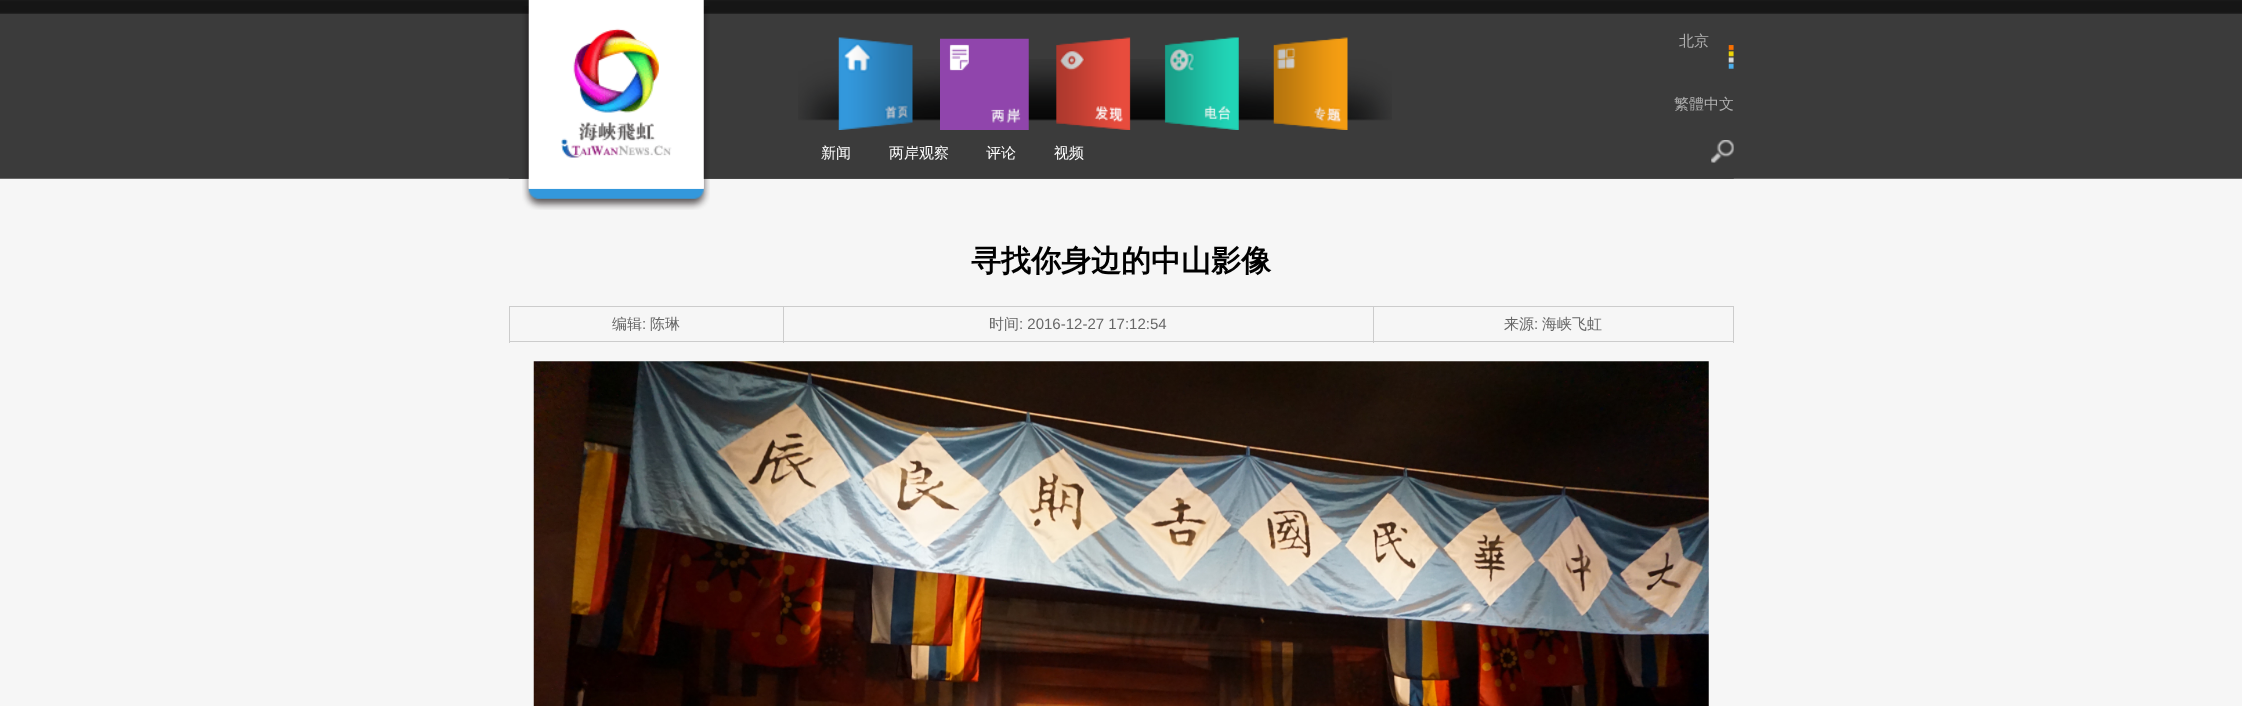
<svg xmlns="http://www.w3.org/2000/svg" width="2242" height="706">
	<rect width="100%" height="100%" fill="#F6F6F6" />
	<image x="0" y="0" width="2242" height="179" href="assets/img1.png" />
	<image x="508" y="178" width="1226" height="1" href="assets/img4.png" />
	<image x="522" y="6" width="188" height="204" href="assets/img2.png" />
	<image x="528" y="0" width="176" height="189" href="assets/img3.png" />
	<text x="1679" y="46" font-family="WenQuanYi Zen Hei" font-size="15" font-weight="500" fill="#B0B0B0">北京</text>
	<image x="1728" y="45" width="6" height="24" href="assets/img5.png" />
	<text x="1674" y="109" font-family="WenQuanYi Zen Hei" font-size="15" font-weight="500" fill="#B0B0B0">繁體中文</text>
	<image x="1711" y="140" width="23" height="23" href="assets/img6.png" />
	<image x="798" y="59" width="594" height="62" href="assets/img7.png" />
	<image x="838" y="37" width="75" height="93" href="assets/img8.png" />
	<image x="940" y="38" width="89" height="92" href="assets/img9.png" />
	<image x="1056" y="37" width="75" height="93" href="assets/img10.png" />
	<image x="1164" y="37" width="75" height="93" href="assets/img11.png" />
	<image x="1273" y="37" width="75" height="93" href="assets/img12.png" />
	<g font-family="WenQuanYi Zen Hei" font-size="15" font-weight="500" fill="#FFFFFF">
		<text x="821" y="158">新闻</text>
		<text x="889" y="158">两岸观察</text>
		<text x="986" y="158">评论</text>
		<text x="1054" y="158">视频</text>
	</g>
	<text x="971" y="271" font-family="WenQuanYi Zen Hei" font-size="30" font-weight="700" fill="#000000">寻找你身边的中山影像</text>
	<rect x="509" y="306" width="1225" height="1" fill="#CCCCCC" />
	<rect x="1733" y="306" width="1" height="37" fill="#CCCCCC" />
	<rect x="509" y="341" width="1225" height="1" fill="#CCCCCC" />
	<rect x="509" y="306" width="1" height="37" fill="#CCCCCC" />
	<rect x="783" y="306" width="1" height="37" fill="#CCCCCC" />
	<text x="612" y="329" font-family="WenQuanYi Zen Hei" font-size="15" font-weight="500" fill="#666666">编辑</text>
	<text x="642" y="329" font-family="Liberation Sans" font-size="15" fill="#666666">:</text>
	<text x="650" y="329" font-family="WenQuanYi Zen Hei" font-size="15" font-weight="500" fill="#666666">陈琳</text>
	<rect x="1373" y="306" width="1" height="37" fill="#CCCCCC" />
	<text x="989" y="329" font-family="WenQuanYi Zen Hei" font-size="15" font-weight="500" fill="#666666">时间</text>
	<text x="1019" y="329" font-family="Liberation Sans" font-size="15" fill="#666666">: 2016-12-27 17:12:54</text>
	<text x="1504" y="329" font-family="WenQuanYi Zen Hei" font-size="15" font-weight="500" fill="#666666">来源</text>
	<text x="1534" y="329" font-family="Liberation Sans" font-size="15" fill="#666666">:</text>
	<text x="1542" y="329" font-family="WenQuanYi Zen Hei" font-size="15" font-weight="500" fill="#666666">海峡飞虹</text>
	<image x="533" y="361" width="1176" height="345" href="assets/img13.png" />
</svg>
